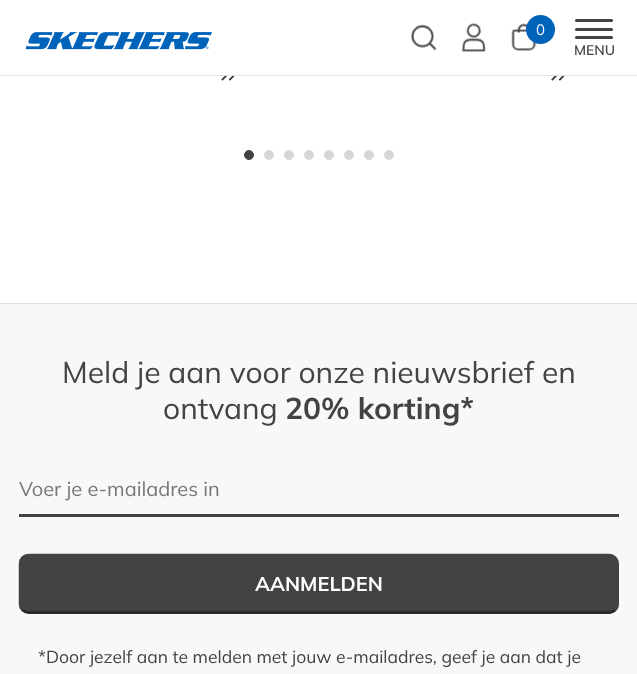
<svg xmlns="http://www.w3.org/2000/svg" width="637" height="674">
	<rect width="100%" height="100%" fill="#FFFFFF" />
	<rect x="0" y="75" width="637" height="1" fill="#E3E3E3" />
	<image x="25" y="32" width="187" height="18" href="assets/img1.png" />
	<image x="410" y="24" width="27" height="27" href="assets/img2.png" />
	<image x="461" y="23" width="25" height="29" href="assets/img3.png" />
	<image x="511" y="23" width="25" height="28" href="assets/img4.png" />
	<circle cx="540.5" cy="29.5" r="14.5" fill="#0063BA" />
	<text x="536" y="35" font-family="Mulish" font-size="15" fill="#FFFFFF">0</text>
	<rect x="575" y="19" width="38" height="3" rx="1.5" fill="#434343" />
	<rect x="575" y="28" width="38" height="3" rx="1.5" fill="#434343" />
	<rect x="575" y="36" width="38" height="3" rx="1.5" fill="#434343" />
	<text x="574" y="55" font-family="Mulish" font-size="14" font-weight="600" fill="#434343">MENU</text>
	<image x="221" y="76" width="14" height="5" href="assets/img5.png" />
	<image x="551" y="76" width="14" height="5" href="assets/img5.png" />
	<circle cx="249" cy="155" r="4.5" fill="#434343" stroke="#434343" />
	<circle cx="269" cy="155" r="4.5" fill="#D6D6D6" stroke="#D6D6D6" />
	<circle cx="289" cy="155" r="4.5" fill="#D6D6D6" stroke="#D6D6D6" />
	<circle cx="309" cy="155" r="4.5" fill="#D6D6D6" stroke="#D6D6D6" />
	<circle cx="329" cy="155" r="4.5" fill="#D6D6D6" stroke="#D6D6D6" />
	<circle cx="349" cy="155" r="4.5" fill="#D6D6D6" stroke="#D6D6D6" />
	<circle cx="369" cy="155" r="4.5" fill="#D6D6D6" stroke="#D6D6D6" />
	<circle cx="389" cy="155" r="4.5" fill="#D6D6D6" stroke="#D6D6D6" />
	<rect x="0" y="304" width="637" height="370" fill="#F8F8F8" />
	<rect x="0" y="303" width="637" height="1" fill="#DEDEDE" />
	<g font-family="Mulish" font-size="30" fill="#434343">
		<text x="62" y="383">Meld je aan voor onze nieuwsbrief en</text>
		<text x="163" y="419">ontvang</text>
	</g>
	<text x="285" y="419" font-family="Mulish" font-size="30" font-weight="700" fill="#434343">20% korting*</text>
	<rect x="19" y="514" width="600" height="3" fill="#434343" />
	<text x="19" y="496" font-family="Mulish" font-size="20" fill="#767676">Voer je e-mailadres in</text>
	<rect x="19" y="554" width="600" height="60" rx="10" fill="#434343" />
	<path d="M615 610C613.5 611.5 611 612.5 609 612.5H29C26.5 612.5 24 611.5 22.5 610" fill="none" stroke="#282828" stroke-width="2.5" />
	<path d="M22.5 610C21 608.5 20 606 20 604V564C20 561.5 21 559 22.5 557.5C24 556 26.5 555 29 555H609C611 555 613.5 556 615 557.5C616.5 559 617.5 561.5 617.5 564V604C617.5 606 616.5 608.5 615 610" fill="none" stroke="#434343" stroke-width="2.5" />
	<text x="255" y="591" font-family="Mulish" font-size="20" font-weight="700" fill="#FFFFFF">AANMELDEN</text>
	<text x="38" y="663" font-family="Mulish" font-size="17.5" fill="#434343">*Door jezelf aan te melden met jouw e-mailadres, geef je aan dat je</text>
</svg>
